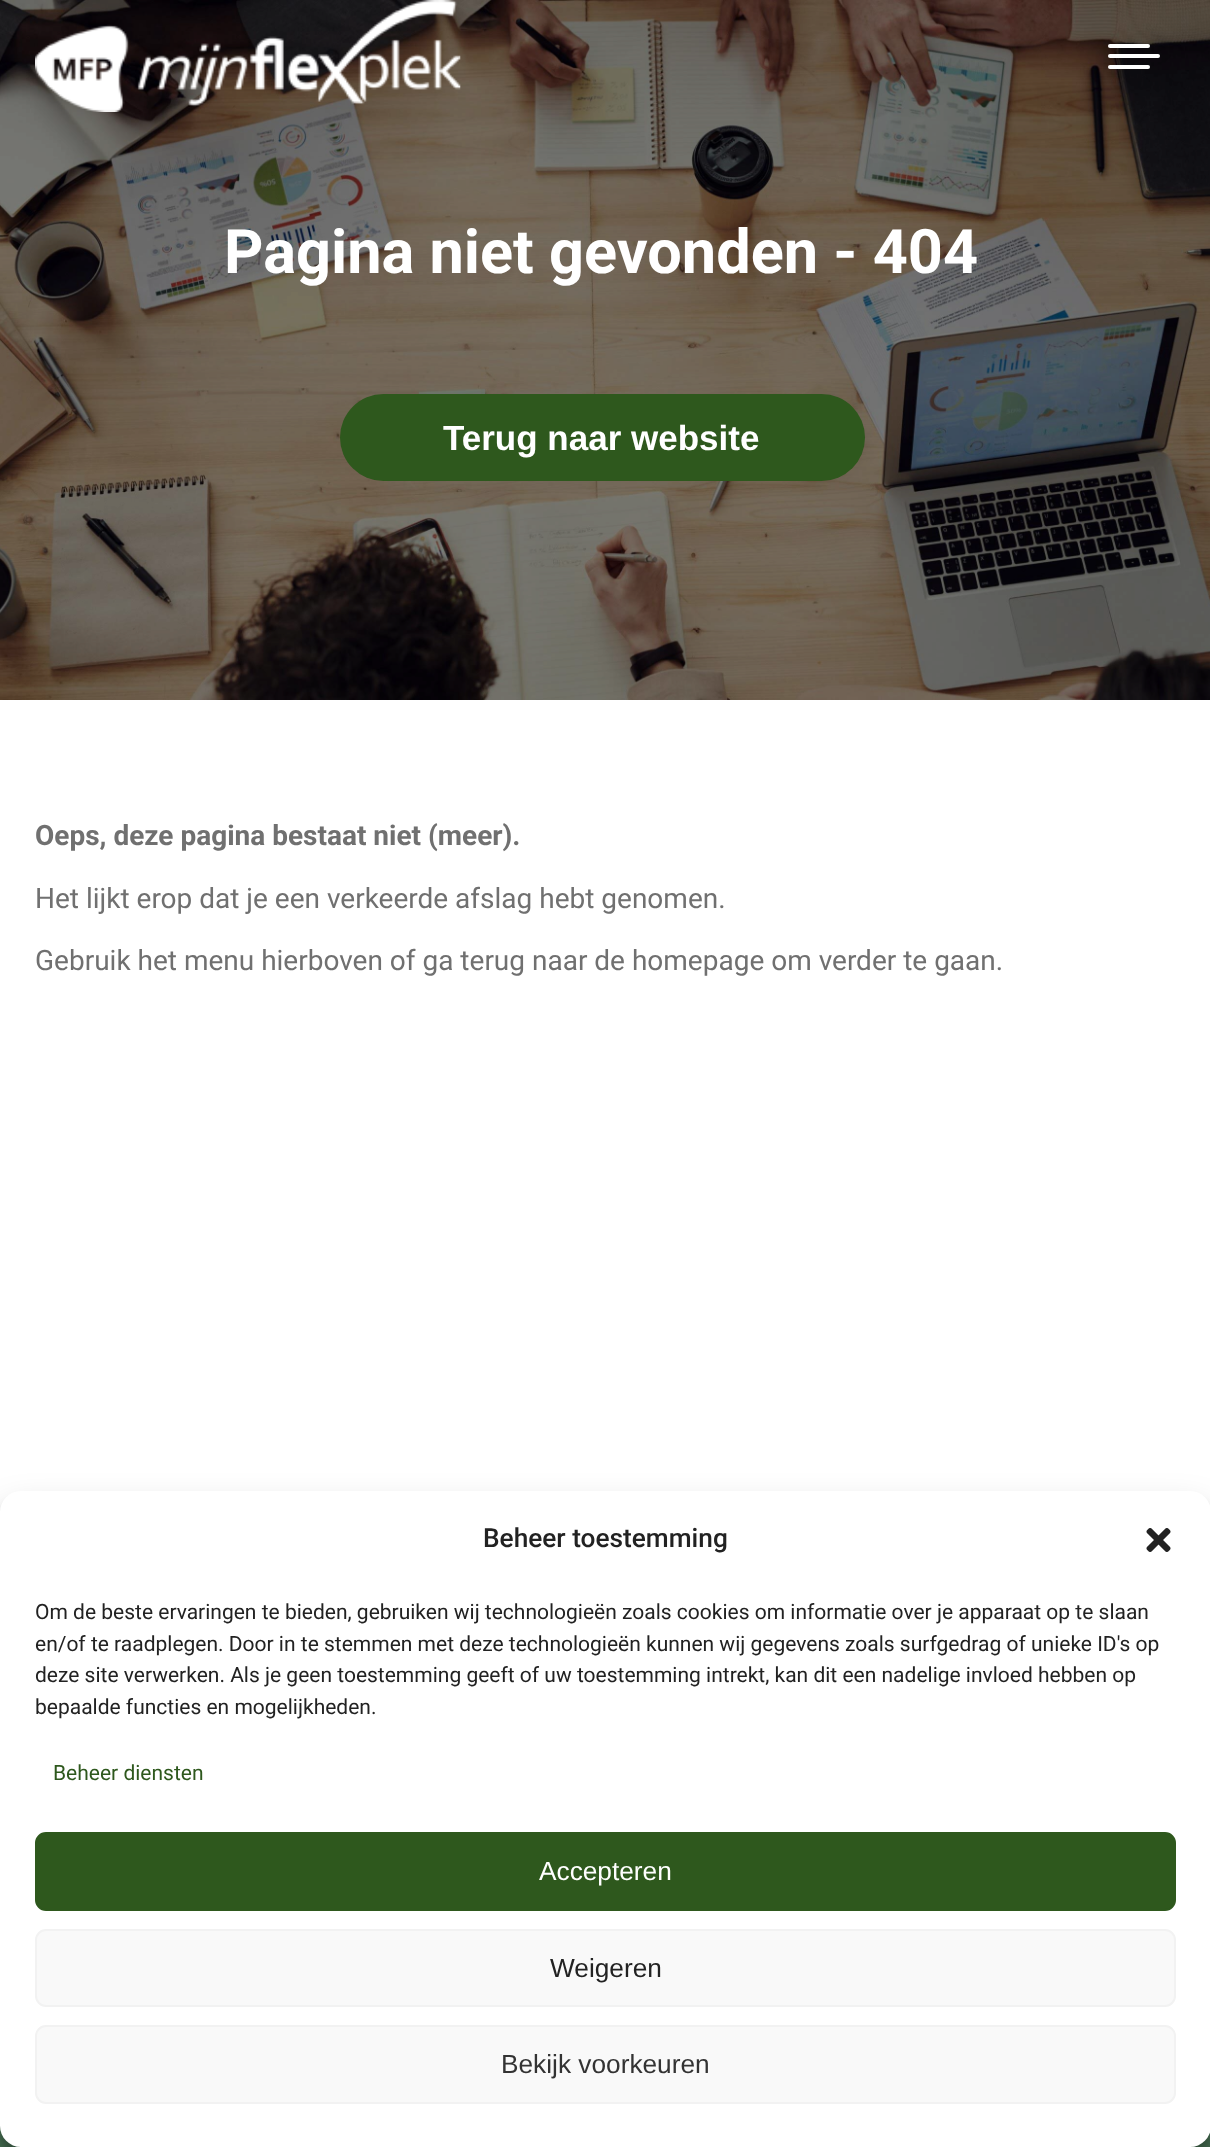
<svg xmlns="http://www.w3.org/2000/svg" width="1210" height="2147">
	<rect width="100%" height="100%" fill="#FFFFFF" />
	<image x="0" y="0" width="1210" height="700" href="assets/img2.png" />
	<image x="35" y="0" width="426" height="112" href="assets/img1.png" />
	<rect x="1108" y="44" width="42" height="4" rx="2" fill="#FFFFFF" />
	<rect x="1108" y="54" width="52" height="4" rx="2" fill="#FFFFFF" />
	<rect x="1108" y="65" width="42" height="4" rx="2" fill="#FFFFFF" />
	<text x="224" y="273" font-family="Roboto" font-size="61.25" font-weight="700" fill="#FFFFFF">Pagina niet gevonden - 404</text>
	<rect x="340" y="394" width="525" height="87" rx="43.5" fill="#2E581D" />
	<text x="443" y="450" font-family="Liberation Sans" font-size="35" font-weight="700" fill="#FFFFFF">Terug naar website</text>
	<text x="35" y="845" font-family="Roboto" font-size="28" font-weight="700" fill="#707070">Oeps, deze pagina bestaat niet (meer).</text>
	<g font-family="Roboto" font-size="28" fill="#707070">
		<text x="35" y="908">Het lijkt erop dat je een verkeerde afslag hebt genomen.</text>
		<text x="35" y="970">Gebruik het menu hierboven of ga terug naar de homepage om verder te gaan.</text>
	</g>
	<rect x="0" y="2126" width="1210" height="21" fill="#4A7456" />
	<rect x="0" y="1502" width="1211" height="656" rx="21" fill="#000000" fill-opacity="0.23" filter="blur(5px)" />
	<rect x="0" y="1509" width="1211" height="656" rx="21" fill="#000000" fill-opacity="0.19" filter="blur(17.5px)" />
	<rect x="0" y="1491" width="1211" height="656" rx="21" fill="#FFFFFF" />
	<text x="483" y="1547" font-family="Roboto" font-size="26.25" font-weight="500" fill="#222222">Beheer toestemming</text>
	<image x="1146" y="1528" width="25" height="24" href="assets/img3.png" />
	<g font-family="Roboto" font-size="21" fill="#222222">
		<text x="35" y="1619">Om de beste ervaringen te bieden, gebruiken wij technologieën zoals cookies om informatie over je apparaat op te slaan</text>
		<text x="35" y="1651">en/of te raadplegen. Door in te stemmen met deze technologieën kunnen wij gegevens zoals surfgedrag of unieke ID's op</text>
		<text x="35" y="1682">deze site verwerken. Als je geen toestemming geeft of uw toestemming intrekt, kan dit een nadelige invloed hebben op</text>
		<text x="35" y="1714">bepaalde functies en mogelijkheden.</text>
	</g>
	<text x="53" y="1780" font-family="Roboto" font-size="21" fill="#2E581D">Beheer diensten</text>
	<rect x="36" y="1833" width="1139" height="77" rx="10" fill="#2E581D" stroke="#2E581D" stroke-width="2" />
	<text x="539" y="1880" font-family="Liberation Sans" font-size="26.25" fill="#FFFFFF">Accepteren</text>
	<rect x="36" y="1930" width="1139" height="76" rx="10" fill="#F9F9F9" stroke="#F2F2F2" stroke-width="2" />
	<text x="550" y="1977" font-family="Liberation Sans" font-size="26.25" fill="#222222">Weigeren</text>
	<rect x="36" y="2026" width="1139" height="77" rx="10" fill="#F9F9F9" stroke="#F2F2F2" stroke-width="2" />
	<text x="501" y="2073" font-family="Liberation Sans" font-size="26.25" fill="#333333">Bekijk voorkeuren</text>
</svg>
